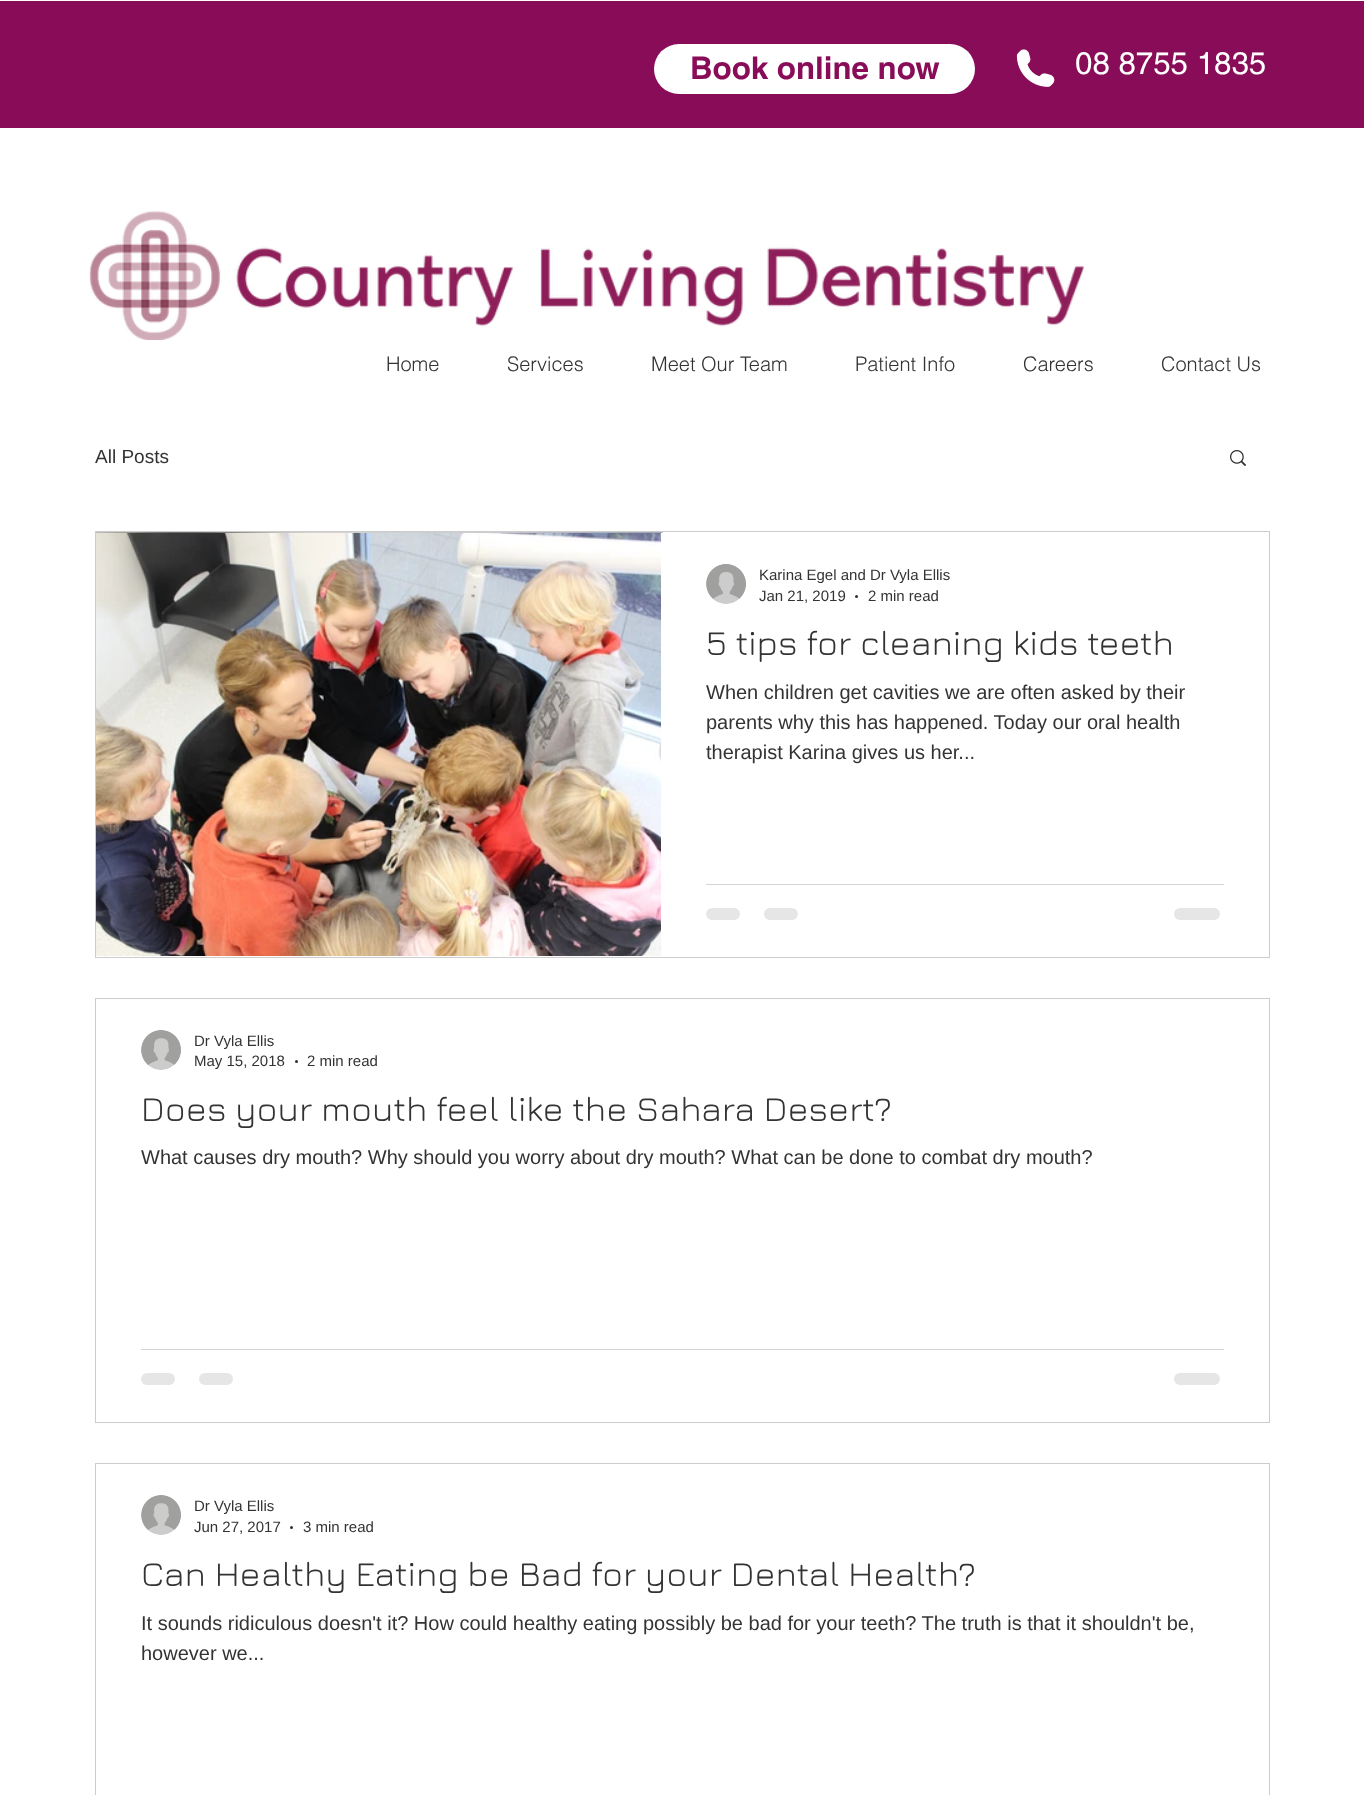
<svg xmlns="http://www.w3.org/2000/svg" width="1364" height="1795">
	<rect width="100%" height="100%" fill="#FFFFFF" />
	<rect x="0" y="1" width="1364" height="127" fill="#890C58" />
	<rect x="654" y="44" width="321" height="50" rx="25" fill="#FFFFFF" />
	<text x="690" y="79" font-family="helvetica" font-size="31.25" font-weight="700" fill="#890C58">Book online now</text>
	<image x="1016" y="49" width="39" height="38" href="assets/img1.png" />
	<text x="1075" y="74" font-family="helvetica" font-size="31.25" fill="#FFFFFF">08 8755 1835</text>
	<image x="89" y="211" width="995" height="129" href="assets/img2.png" />
	<g font-family="helvetica" font-size="20" font-weight="300" fill="#333333">
		<text x="386" y="371">Home</text>
		<text x="507" y="371">Services</text>
		<text x="651" y="371">Meet Our Team</text>
		<text x="855" y="371">Patient Info</text>
		<text x="1023" y="371">Careers</text>
		<text x="1161" y="371">Contact Us</text>
	</g>
	<text x="95" y="463" font-family="Liberation Sans" font-size="19" fill="#333333">All Posts</text>
	<image x="1230" y="450" width="16" height="16" href="assets/img3.png" />
	<rect x="95.5" y="531.5" width="1174" height="426" fill="none" stroke="#CCCCCC" />
	<image x="96" y="532" width="567" height="1" href="assets/img4.png" />
	<image x="96" y="533" width="565" height="423" href="assets/img5.png" />
	<image x="706" y="564" width="40" height="40" href="assets/img6.png" />
	<g font-family="Liberation Sans" font-size="15" fill="#333333">
		<text x="759" y="580">Karina Egel and Dr Vyla Ellis</text>
		<text x="759" y="601">Jan 21, 2019</text>
	</g>
	<circle cx="856.5" cy="596.5" r="1.5" fill="#2F2E2E" />
	<text x="868" y="601" font-family="Liberation Sans" font-size="15" fill="#333333">2 min read</text>
	<text x="706" y="655" font-family="Jura" font-size="35" fill="#333333">5 tips for cleaning kids teeth</text>
	<g font-family="Liberation Sans" font-size="20" fill="#333333">
		<text x="706" y="699">When children get cavities we are often asked by their</text>
		<text x="706" y="729">parents why this has happened. Today our oral health</text>
		<text x="706" y="759">therapist Karina gives us her...</text>
	</g>
	<rect x="706" y="884" width="518" height="1" fill="#D5D5D5" />
	<rect x="706" y="908" width="34" height="12" rx="6" fill="#E6E6E6" />
	<rect x="764" y="908" width="34" height="12" rx="6" fill="#E6E6E6" />
	<rect x="1174" y="908" width="46" height="12" rx="6" fill="#E6E6E6" />
	<rect x="95.5" y="998.5" width="1174" height="424" fill="none" stroke="#CCCCCC" />
	<image x="141" y="1030" width="40" height="40" href="assets/img7.png" />
	<g font-family="Liberation Sans" font-size="15" fill="#333333">
		<text x="194" y="1046">Dr Vyla Ellis</text>
		<text x="194" y="1066">May 15, 2018</text>
	</g>
	<circle cx="296.5" cy="1061.5" r="1.5" fill="#2F2E2E" />
	<text x="307" y="1066" font-family="Liberation Sans" font-size="15" fill="#333333">2 min read</text>
	<text x="141" y="1121" font-family="Jura" font-size="35" fill="#333333">Does your mouth feel like the Sahara Desert?</text>
	<text x="141" y="1164" font-family="Liberation Sans" font-size="20" fill="#333333">What causes dry mouth? Why should you worry about dry mouth? What can be done to combat dry mouth?</text>
	<rect x="141" y="1349" width="1083" height="1" fill="#D5D5D5" />
	<rect x="141" y="1373" width="34" height="12" rx="6" fill="#E6E6E6" />
	<rect x="199" y="1373" width="34" height="12" rx="6" fill="#E6E6E6" />
	<rect x="1174" y="1373" width="46" height="12" rx="6" fill="#E6E6E6" />
	<rect x="95.5" y="1463.5" width="1174" height="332" fill="none" stroke="#CCCCCC" />
	<image x="141" y="1495" width="40" height="40" href="assets/img7.png" />
	<g font-family="Liberation Sans" font-size="15" fill="#333333">
		<text x="194" y="1511">Dr Vyla Ellis</text>
		<text x="194" y="1532">Jun 27, 2017</text>
	</g>
	<circle cx="291.5" cy="1527.5" r="1.5" fill="#2F2E2E" />
	<text x="303" y="1532" font-family="Liberation Sans" font-size="15" fill="#333333">3 min read</text>
	<text x="141" y="1586" font-family="Jura" font-size="35" fill="#333333">Can Healthy Eating be Bad for your Dental Health?</text>
	<g font-family="Liberation Sans" font-size="20" fill="#333333">
		<text x="141" y="1630">It sounds ridiculous doesn't it? How could healthy eating possibly be bad for your teeth? The truth is that it shouldn't be,</text>
		<text x="141" y="1660">however we...</text>
	</g>
</svg>
